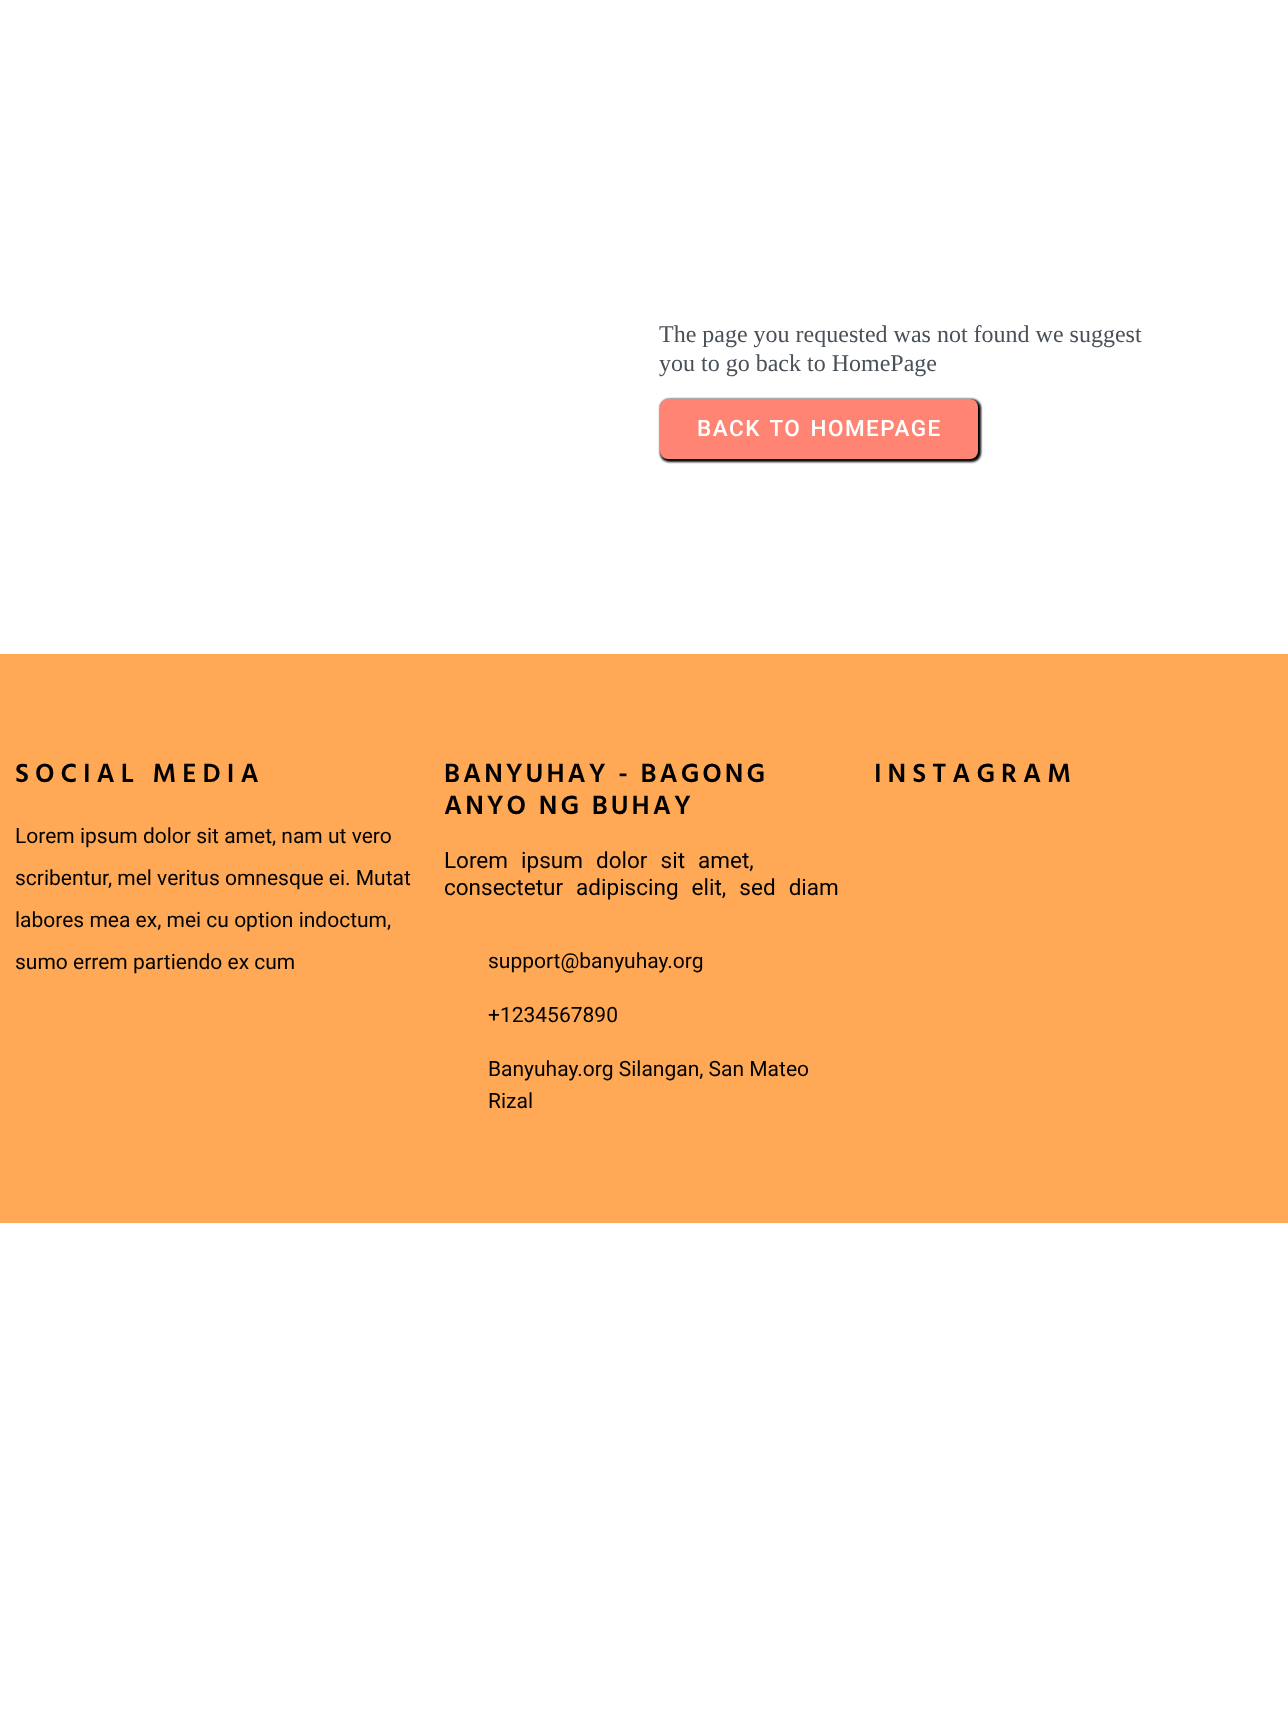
<svg xmlns="http://www.w3.org/2000/svg" width="1288" height="1725">
	<rect width="100%" height="100%" fill="#FFFFFF" />
	<g font-family="Liberation Serif" font-size="24" fill="#495057">
		<text x="659" y="342">The page you requested was not found we suggest</text>
		<text x="659" y="371">you to go back to HomePage</text>
	</g>
	<rect x="660" y="399" width="321" height="63" rx="9" fill="#000000" filter="blur(1px)" />
	<rect x="660" y="399" width="318" height="60" rx="8" fill="#FF8474" />
	<text x="697" y="436" word-spacing="2" font-family="Roboto" font-size="22.5" font-weight="500" letter-spacing="1.5" fill="#FFFFFF">BACK TO HOMEPAGE</text>
	<rect x="0" y="654" width="1288" height="569" fill="#FFA956" />
	<text x="15" y="782" font-family="Hind" font-size="27" font-weight="600" letter-spacing="6" fill="#000000">SOCIAL MEDIA</text>
	<g font-family="Roboto" font-size="21" fill="#000000">
		<text x="15" y="843">Lorem ipsum dolor sit amet, nam ut vero</text>
		<text x="15" y="885">scribentur, mel veritus omnesque ei. Mutat</text>
		<text x="15" y="927">labores mea ex, mei cu option indoctum,</text>
		<text x="15" y="969">sumo errem partiendo ex cum</text>
	</g>
	<g font-family="Hind" font-size="27" font-weight="600" letter-spacing="3" fill="#000000">
		<text x="444" y="782">BANYUHAY - BAGONG</text>
		<text x="444" y="814">ANYO NG BUHAY</text>
	</g>
	<g font-family="Roboto" font-size="22.5" fill="#000000">
		<text x="444" y="868" word-spacing="7.5">Lorem ipsum dolor sit amet,</text>
		<text x="444" y="895" word-spacing="7.5">consectetur adipiscing elit, sed diam</text>
	</g>
	<g font-family="Roboto" font-size="21" fill="#000000">
		<text x="488" y="968">support@banyuhay.org</text>
		<text x="488" y="1022">+1234567890</text>
		<text x="488" y="1076">Banyuhay.org Silangan, San Mateo</text>
		<text x="488" y="1108">Rizal</text>
	</g>
	<text x="874" y="782" font-family="Hind" font-size="27" font-weight="600" letter-spacing="6" fill="#000000">INSTAGRAM</text>
</svg>
